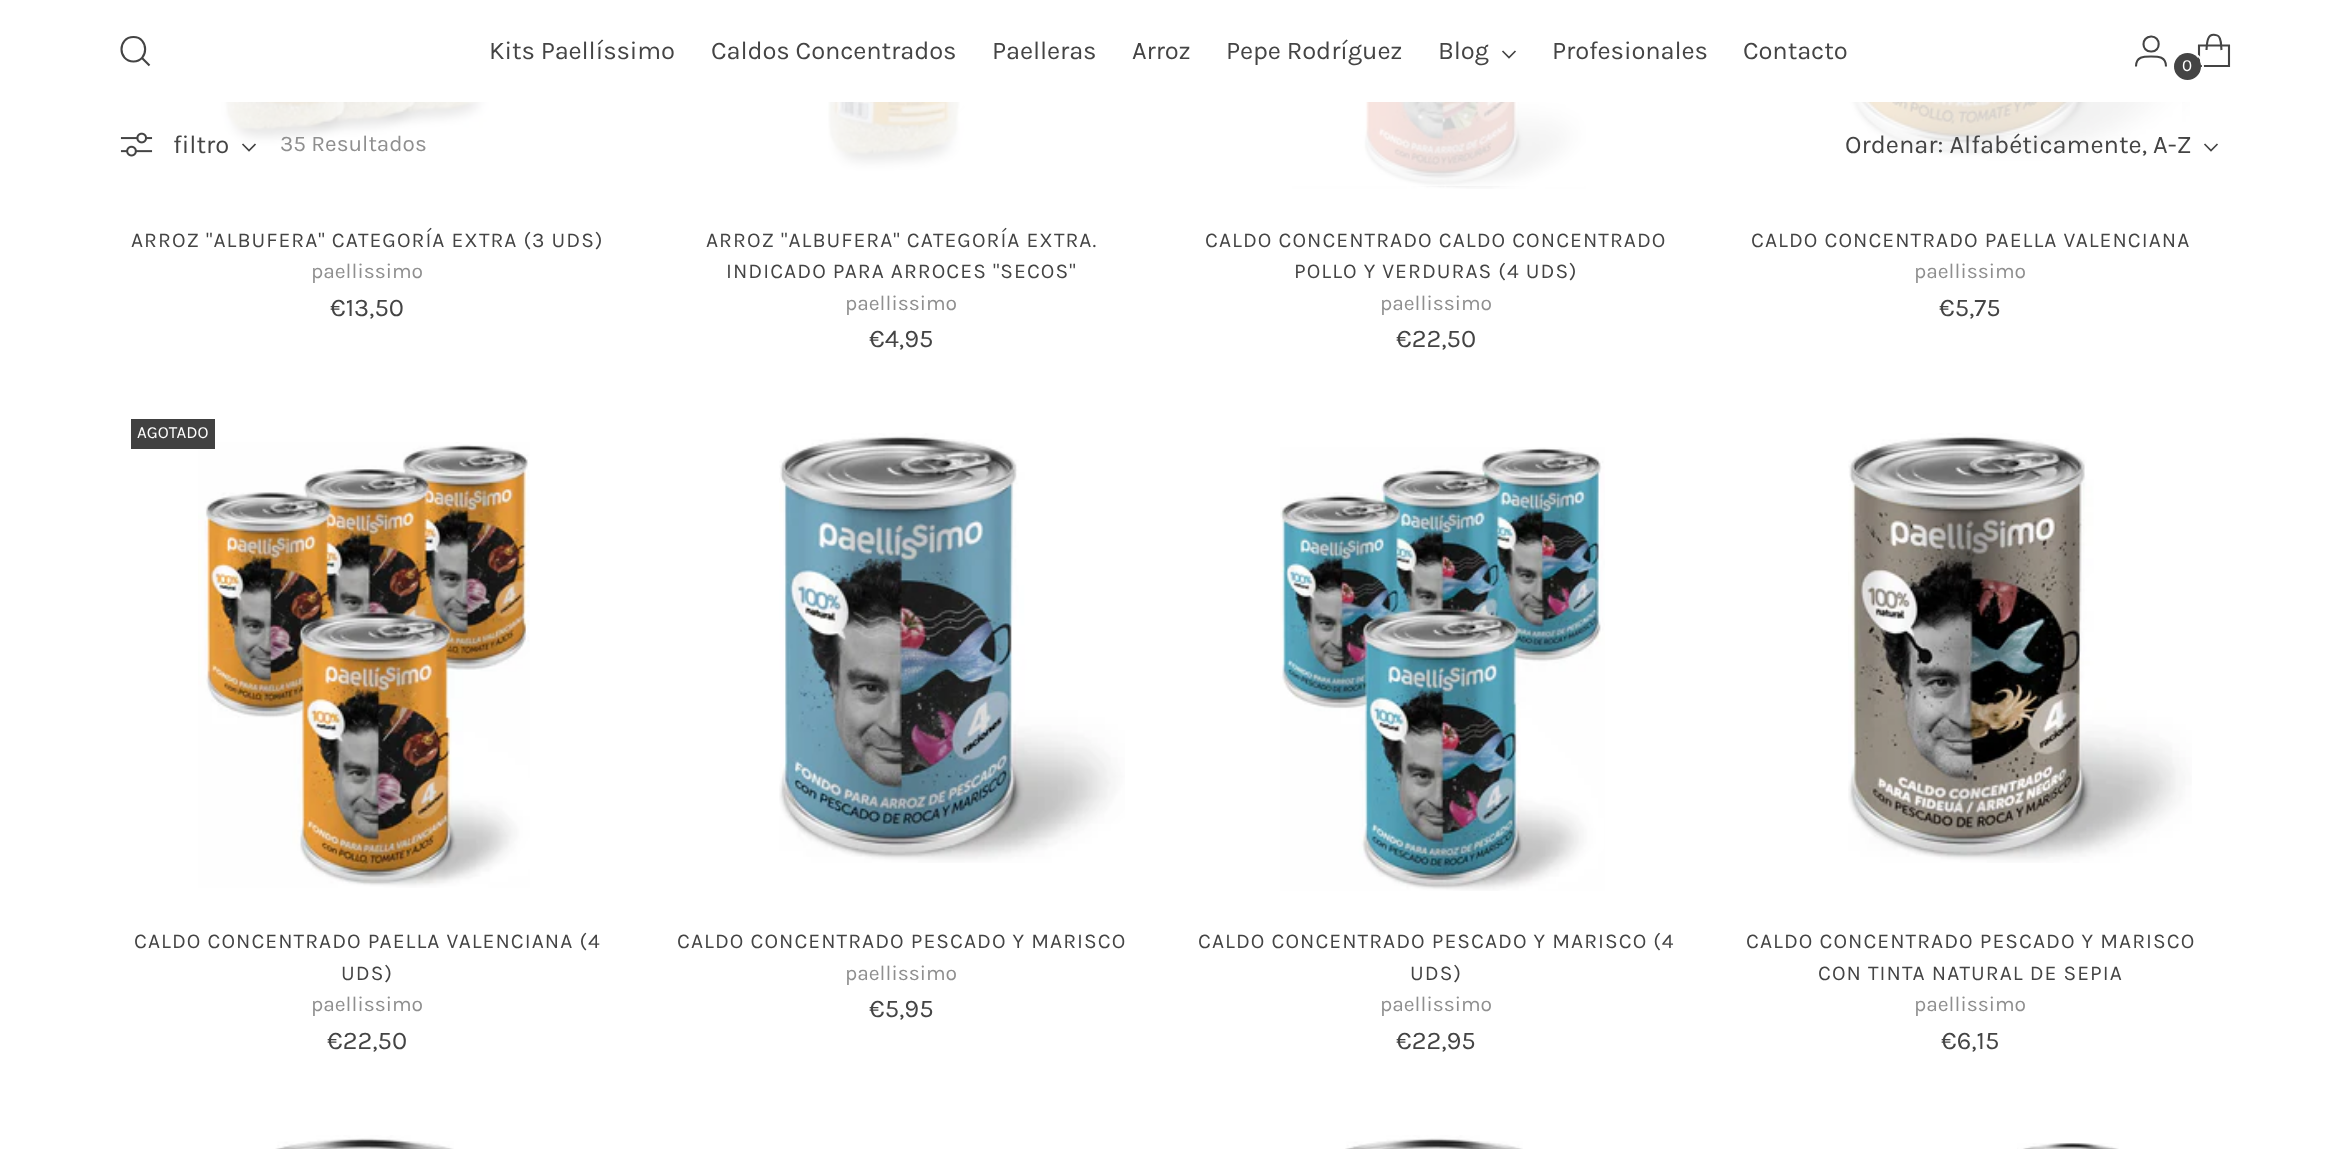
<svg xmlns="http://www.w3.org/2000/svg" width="2336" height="1149">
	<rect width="100%" height="100%" fill="#FFFFFF" />
	<path d="M133.5 61.5C149 61.5 149 37 133.5 37C117.5 37 117.5 61.5 133.5 61.5Z" fill="none" stroke="#444444" stroke-width="2.1" stroke-linecap="round" />
	<path d="M142 58L149.5 65.5" fill="none" stroke="#444444" stroke-width="2.1" />
	<g font-family="Karla" font-size="25.5" letter-spacing="-0.1" fill="#444444">
		<text x="489" y="59">Kits Paellíssimo</text>
		<text x="711" y="59">Caldos Concentrados</text>
		<text x="992" y="59">Paelleras</text>
		<text x="1132" y="59">Arroz</text>
		<text x="1226" y="59">Pepe Rodríguez</text>
		<text x="1438" y="59">Blog</text>
	</g>
	<path d="M1502.5 51L1509 57.5L1515.5 51" fill="none" stroke="#444444" stroke-width="1.7" />
	<g font-family="Karla" font-size="25.5" letter-spacing="-0.1" fill="#444444">
		<text x="1552" y="59">Profesionales</text>
		<text x="1743" y="59">Contacto</text>
	</g>
	<path d="M2151 51.5C2161.5 52 2161 36 2151 36.5C2141 37 2141 51.5 2151 51.5ZM2136 66.5C2136 56.5 2143.5 56.5 2151 56.5C2158.5 56.5 2166 56.5 2166 66.5" fill="none" stroke="#444444" stroke-width="2.1" />
	<path d="M2221.5 50C2221 46.5 2221.5 42.5 2220 39C2219.5 37 2217.5 35 2215.5 35C2206.5 33 2207 44.5 2206.5 50" fill="none" stroke="#444444" stroke-width="2.1" stroke-linejoin="bevel" />
	<path d="M2229 66V45.5H2199V66Z" fill="none" stroke="#444444" stroke-width="2.1" />
	<circle cx="2188" cy="67" r="15" fill="none" stroke="#FFFFFF" stroke-width="2" />
	<circle cx="2187.5" cy="66.5" r="13.5" fill="#444444" />
	<text x="2182" y="71" font-family="Karla" font-size="17" fill="#FFFFFF">0</text>
	<image x="221" y="102" width="269" height="44" href="assets/img2.png" />
	<image x="825" y="102" width="140" height="69" href="assets/img3.png" />
	<image x="1292" y="102" width="294" height="87" href="assets/img4.png" />
	<image x="1848" y="102" width="342" height="59" href="assets/img5.png" />
	<rect x="221" y="102" width="1961" height="84" fill="#FFFFFF" fill-opacity="0.8" />
	<image x="120" y="132" width="33" height="25" href="assets/img1.png" />
	<text x="173" y="153" font-family="Karla" font-size="25.5" fill="#444444">filtro</text>
	<path d="M242.5 144L249 150.5L255.5 144" fill="none" stroke="#444444" stroke-width="1.7" />
	<text x="280" y="151" font-family="Karla" font-size="22.5" fill="#8F8F8F">35 Resultados</text>
	<text x="1845" y="153" font-family="Karla" font-size="25.5" fill="#444444">Ordenar: Alfabéticamente, A-Z</text>
	<path d="M2204.5 144L2211 150.5L2217.5 144" fill="none" stroke="#444444" stroke-width="1.7" />
	<text x="131" y="247" font-family="Karla" font-size="21" letter-spacing="1.05" fill="#444444">ARROZ "ALBUFERA" CATEGORÍA EXTRA (3 UDS)</text>
	<text x="311" y="278" font-family="Karla" font-size="21" fill="#8F8F8F">paellissimo</text>
	<text x="330" y="316" font-family="Karla" font-size="25.5" fill="#444444">€13,50</text>
	<g font-family="Karla" font-size="21" letter-spacing="1.05" fill="#444444">
		<text x="706" y="247">ARROZ "ALBUFERA" CATEGORÍA EXTRA.</text>
		<text x="726" y="278">INDICADO PARA ARROCES "SECOS"</text>
	</g>
	<text x="845" y="310" font-family="Karla" font-size="21" fill="#8F8F8F">paellissimo</text>
	<text x="869" y="347" font-family="Karla" font-size="25.5" fill="#444444">€4,95</text>
	<g font-family="Karla" font-size="21" letter-spacing="1.05" fill="#444444">
		<text x="1205" y="247">CALDO CONCENTRADO CALDO CONCENTRADO</text>
		<text x="1294" y="278">POLLO Y VERDURAS (4 UDS)</text>
	</g>
	<text x="1380" y="310" font-family="Karla" font-size="21" fill="#8F8F8F">paellissimo</text>
	<text x="1396" y="347" font-family="Karla" font-size="25.5" fill="#444444">€22,50</text>
	<text x="1751" y="247" font-family="Karla" font-size="21" letter-spacing="1.05" fill="#444444">CALDO CONCENTRADO PAELLA VALENCIANA</text>
	<text x="1914" y="278" font-family="Karla" font-size="21" fill="#8F8F8F">paellissimo</text>
	<text x="1939" y="316" font-family="Karla" font-size="25.5" fill="#444444">€5,75</text>
	<image x="198" y="442" width="332" height="446" href="assets/img6.png" />
	<rect x="131" y="419" width="84" height="30" fill="#414141" />
	<text x="137" y="438" font-family="Karla" font-size="17" fill="#FFFFFF">AGOTADO</text>
	<g font-family="Karla" font-size="21" letter-spacing="1.05" fill="#444444">
		<text x="134" y="948">CALDO CONCENTRADO PAELLA VALENCIANA (4</text>
		<text x="341" y="980">UDS)</text>
	</g>
	<text x="311" y="1011" font-family="Karla" font-size="21" fill="#8F8F8F">paellissimo</text>
	<text x="327" y="1049" font-family="Karla" font-size="25.5" fill="#444444">€22,50</text>
	<image x="779" y="433" width="346" height="430" href="assets/img7.png" />
	<text x="677" y="948" font-family="Karla" font-size="21" letter-spacing="1.05" fill="#444444">CALDO CONCENTRADO PESCADO Y MARISCO</text>
	<text x="845" y="980" font-family="Karla" font-size="21" fill="#8F8F8F">paellissimo</text>
	<text x="869" y="1017" font-family="Karla" font-size="25.5" fill="#444444">€5,95</text>
	<image x="1280" y="447" width="325" height="444" href="assets/img8.png" />
	<g font-family="Karla" font-size="21" letter-spacing="1.05" fill="#444444">
		<text x="1198" y="948">CALDO CONCENTRADO PESCADO Y MARISCO (4</text>
		<text x="1410" y="980">UDS)</text>
	</g>
	<text x="1380" y="1011" font-family="Karla" font-size="21" fill="#8F8F8F">paellissimo</text>
	<text x="1396" y="1049" font-family="Karla" font-size="25.5" fill="#444444">€22,95</text>
	<image x="1848" y="433" width="344" height="430" href="assets/img9.png" />
	<g font-family="Karla" font-size="21" letter-spacing="1.05" fill="#444444">
		<text x="1746" y="948">CALDO CONCENTRADO PESCADO Y MARISCO</text>
		<text x="1818" y="980">CON TINTA NATURAL DE SEPIA</text>
	</g>
	<text x="1914" y="1011" font-family="Karla" font-size="21" fill="#8F8F8F">paellissimo</text>
	<text x="1941" y="1049" font-family="Karla" font-size="25.5" fill="#444444">€6,15</text>
	<image x="275" y="1135" width="179" height="14" href="assets/img10.png" />
	<image x="1345" y="1135" width="178" height="14" href="assets/img11.png" />
	<image x="2017" y="1143" width="102" height="6" href="assets/img12.png" />
</svg>
